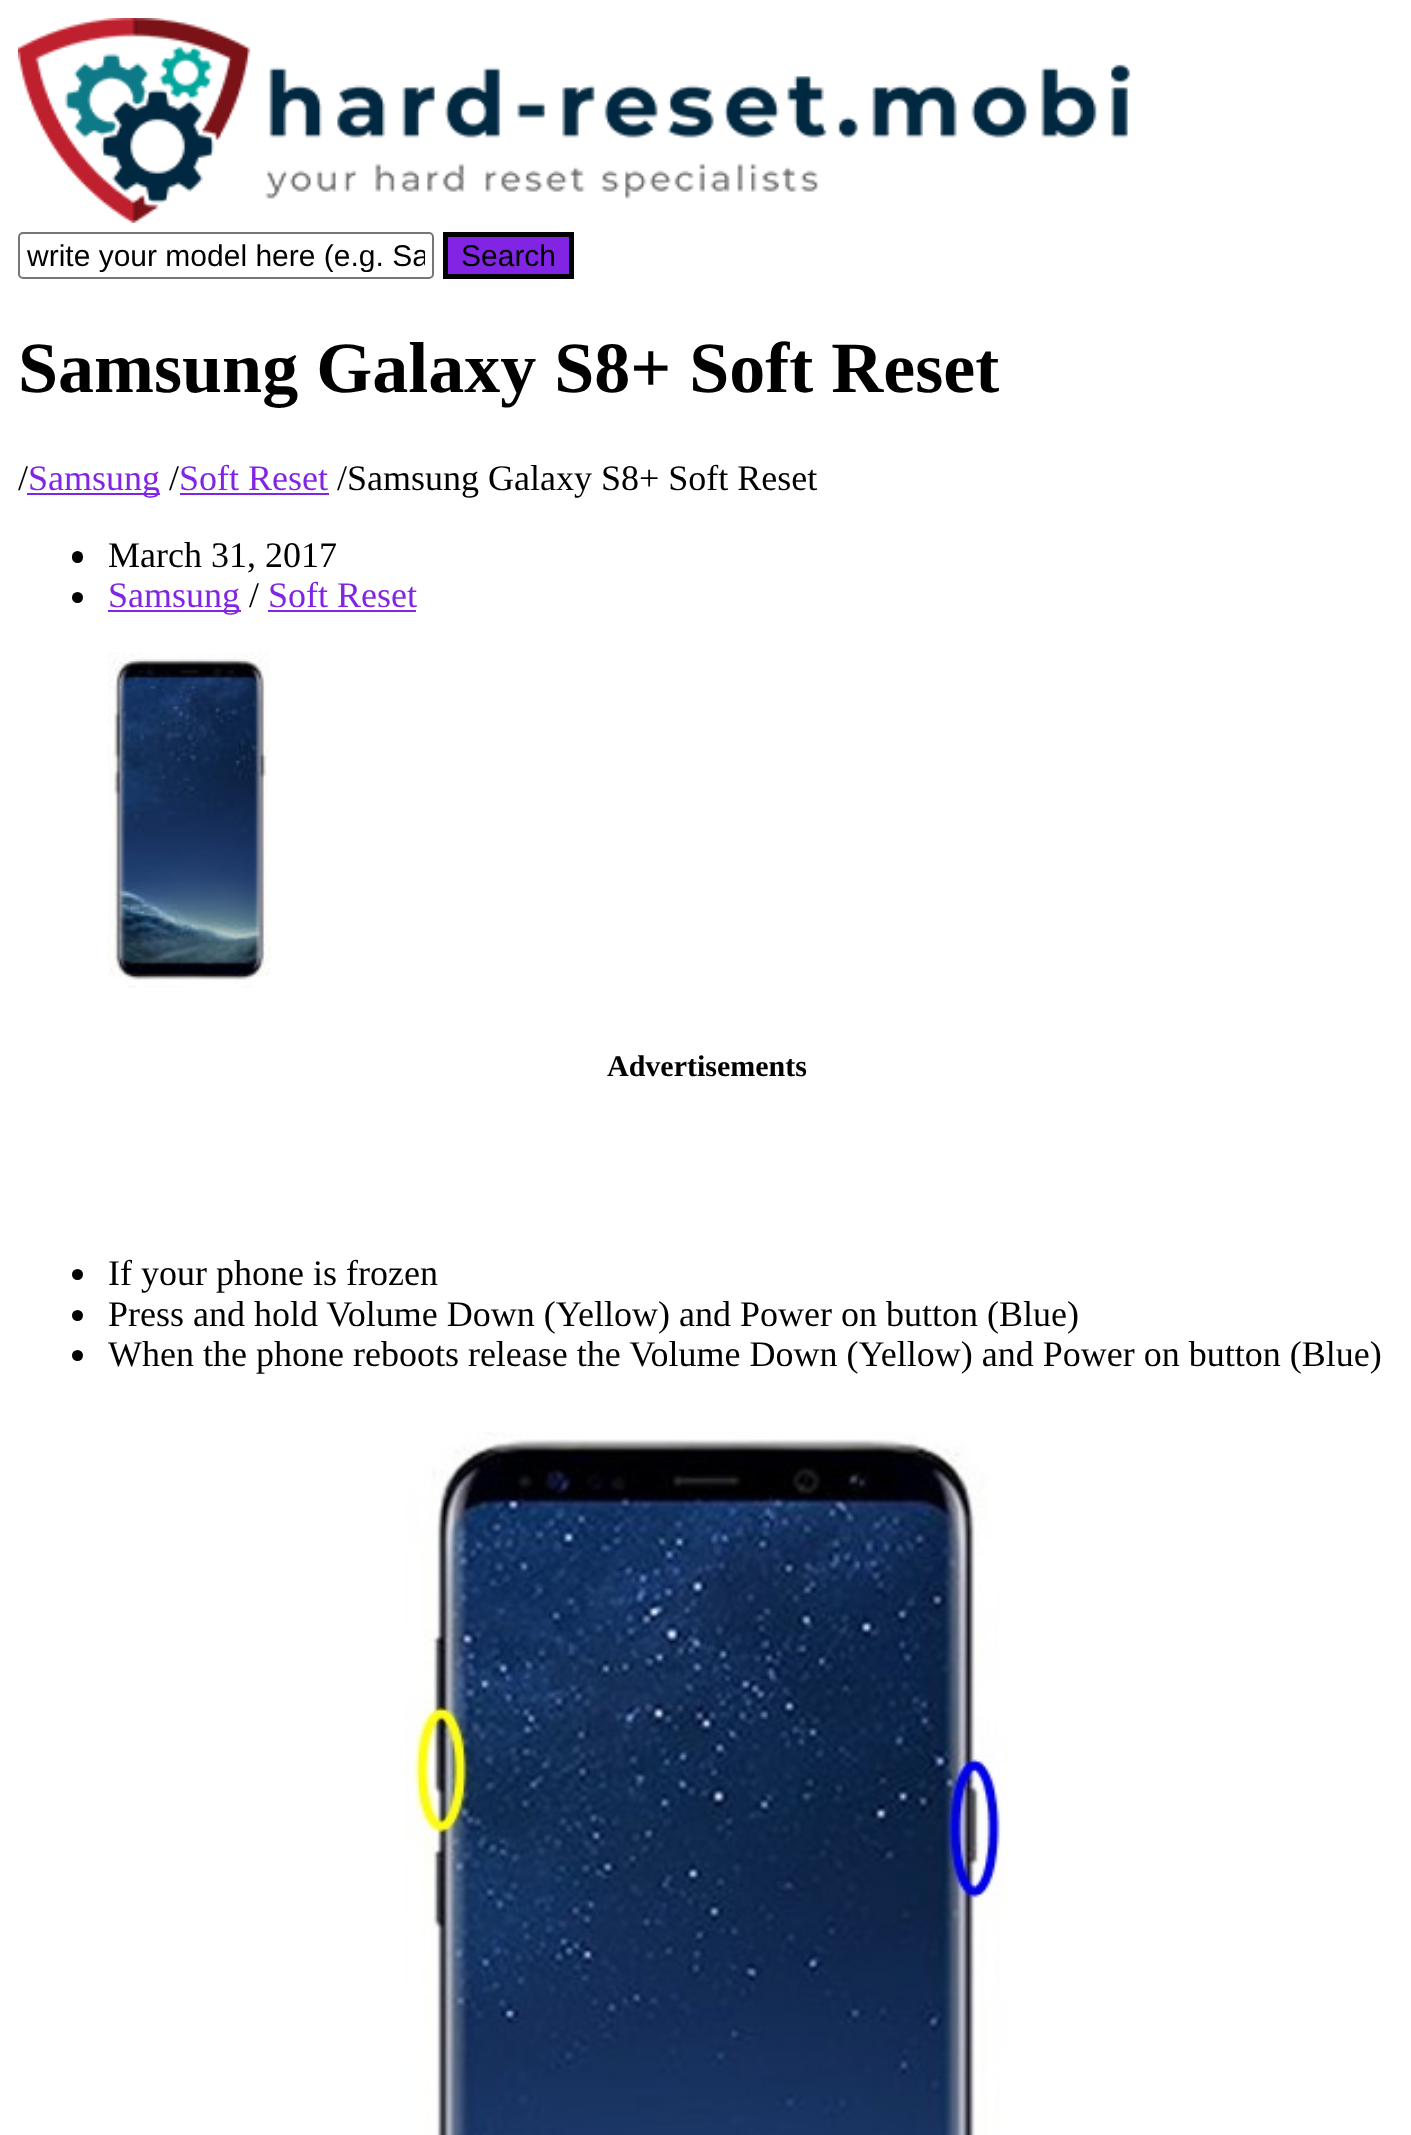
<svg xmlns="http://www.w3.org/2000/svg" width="1411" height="2135">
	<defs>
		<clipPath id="clip1"><rect x="27" y="239" width="398" height="33" /></clipPath>
	</defs>
	<rect width="100%" height="100%" fill="#FFFFFF" />
	<image x="18" y="18" width="1113" height="205" href="assets/img1.png" />
	<rect x="19" y="233" width="414" height="45" rx="4" fill="none" stroke="#767676" stroke-width="2" />
	<g clip-path="url(#clip1)">
		<text x="27" y="266" font-family="Liberation Sans" font-size="30" fill="#000000">write your model here (e.g. Sa</text>
	</g>
	<rect x="445.5" y="234.5" width="126" height="42" fill="#8224E3" stroke="#000000" stroke-width="5" />
	<text x="461" y="266" font-family="Liberation Sans" font-size="30" fill="#000000">Search</text>
	<text x="18" y="392" font-family="Liberation Serif" font-size="72" font-weight="700" fill="#000000">Samsung Galaxy S8+ Soft Reset</text>
	<text x="18" y="490" font-family="Liberation Serif" font-size="36" fill="#000000">/</text>
	<rect x="27" y="493" width="133" height="2" fill="#8224E3" />
	<text x="28" y="490" font-family="Liberation Serif" font-size="36" fill="#8224E3">Samsung</text>
	<text x="169" y="490" font-family="Liberation Serif" font-size="36" fill="#000000">/</text>
	<text x="179" y="490" font-family="Liberation Serif" font-size="36" fill="#8224E3">Soft Reset</text>
	<rect x="180" y="493" width="149" height="2" fill="#8224E3" />
	<text x="337" y="490" font-family="Liberation Serif" font-size="36" fill="#000000">/Samsung Galaxy S8+ Soft Reset</text>
	<rect x="72" y="551" width="11" height="12" rx="5.5" fill="#000000" />
	<text x="108" y="567" font-family="Liberation Serif" font-size="36" fill="#000000">March 31, 2017</text>
	<circle cx="77.5" cy="597.5" r="5.5" fill="#000000" />
	<rect x="108" y="610" width="133" height="2" fill="#8224E3" />
	<text x="108" y="607" font-family="Liberation Serif" font-size="36" fill="#8224E3">Samsung</text>
	<text x="249" y="607" font-family="Liberation Serif" font-size="36" fill="#000000">/</text>
	<text x="268" y="607" font-family="Liberation Serif" font-size="36" fill="#8224E3">Soft Reset</text>
	<rect x="268" y="610" width="148" height="2" fill="#8224E3" />
	<image x="108" y="652" width="163" height="336" href="assets/img2.png" />
	<text x="607" y="1076" font-family="Liberation Serif" font-size="30" font-weight="700" fill="#000000">Advertisements</text>
	<circle cx="77.5" cy="1274.5" r="5.5" fill="#000000" />
	<text x="108" y="1285" font-family="Liberation Serif" font-size="36" fill="#000000">If your phone is frozen</text>
	<circle cx="77.5" cy="1315.5" r="5.5" fill="#000000" />
	<text x="108" y="1326" font-family="Liberation Serif" font-size="36" fill="#000000">Press and hold Volume Down (Yellow) and Power on button (Blue)</text>
	<circle cx="77.5" cy="1355.5" r="5.5" fill="#000000" />
	<text x="108" y="1366" font-family="Liberation Serif" font-size="36" fill="#000000">When the phone reboots release the Volume Down (Yellow) and Power on button (Blue)</text>
	<image x="405" y="1432" width="603" height="703" href="assets/img3.png" />
</svg>
